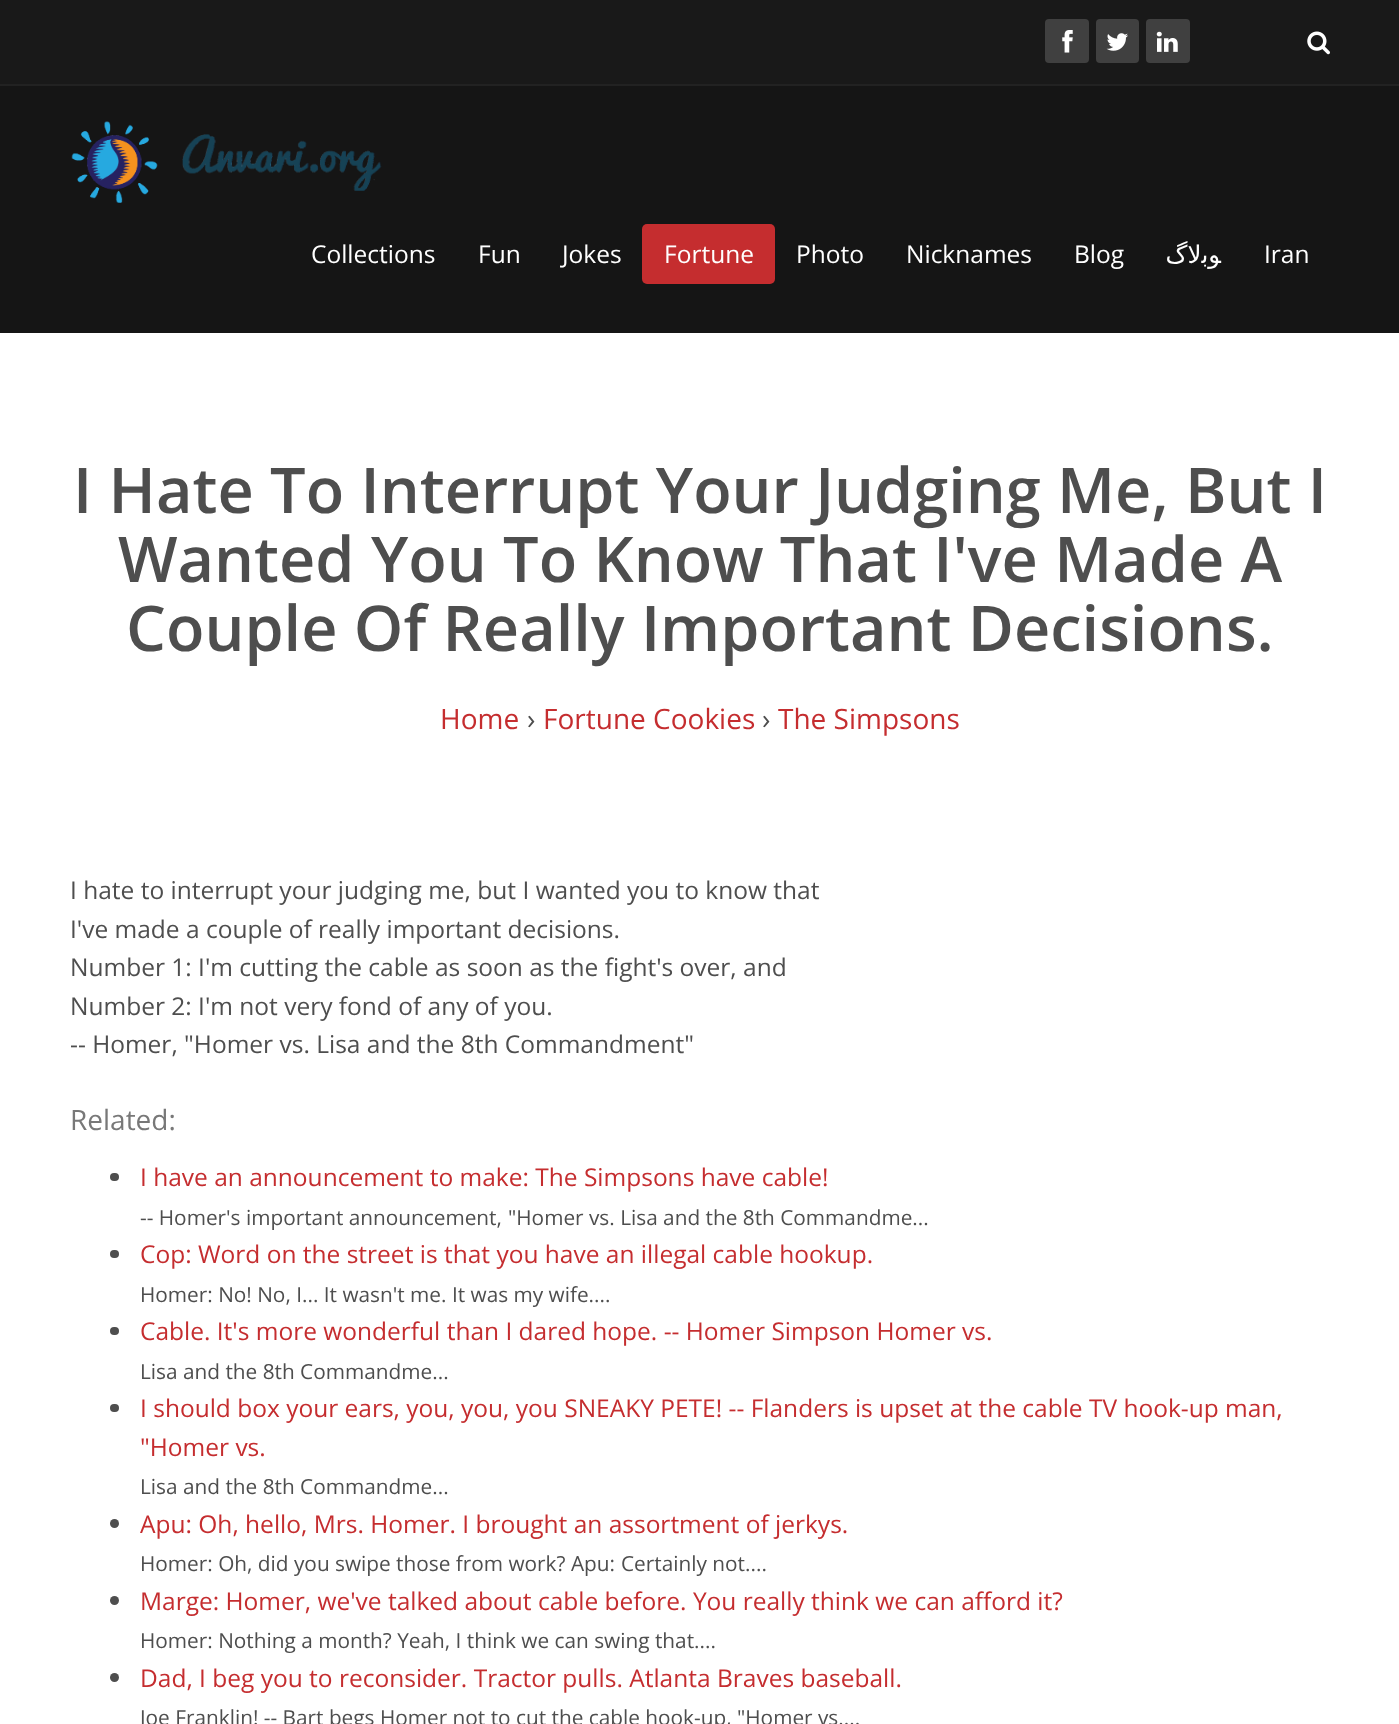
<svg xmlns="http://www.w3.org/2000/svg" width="1399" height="1724">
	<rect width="100%" height="100%" fill="#FFFFFF" />
	<rect x="0" y="0" width="1399" height="84" fill="#191919" />
	<rect x="0" y="84" width="1399" height="2" fill="#222222" />
	<rect x="1045" y="19" width="44" height="44" rx="4" fill="#404040" />
	<image x="1062" y="30" width="11" height="23" href="assets/img1.png" />
	<rect x="1096" y="19" width="43" height="44" rx="4" fill="#404040" />
	<image x="1106" y="33" width="22" height="18" href="assets/img2.png" />
	<rect x="1146" y="19" width="44" height="44" rx="4" fill="#404040" />
	<image x="1156" y="31" width="22" height="21" href="assets/img3.png" />
	<image x="1307" y="31" width="23" height="24" href="assets/img4.png" />
	<rect x="0" y="86" width="1399" height="247" fill="#151515" />
	<image x="71" y="121" width="87" height="82" href="assets/img5.png" />
	<image x="182" y="134" width="200" height="57" href="assets/img6.png" />
	<g font-family="Open Sans" font-size="24.5" fill="#FFFFFF">
		<text x="311" y="263">Collections</text>
		<text x="478" y="263">Fun</text>
		<text x="562" y="263">Jokes</text>
	</g>
	<rect x="642" y="224" width="133" height="60" rx="5" fill="#C52D2F" />
	<g font-family="Open Sans" font-size="24.5" fill="#FFFFFF">
		<text x="664" y="263">Fortune</text>
		<text x="796" y="263">Photo</text>
		<text x="906" y="263">Nicknames</text>
		<text x="1074" y="263">Blog</text>
	</g>
	<text x="1221" y="263" font-family="DejaVu Sans" font-size="24.5" direction="rtl" fill="#FFFFFF">ﻮﺑﻻگ</text>
	<text x="1264" y="263" font-family="Open Sans" font-size="24.5" fill="#FFFFFF">Iran</text>
	<g font-family="Open Sans" font-size="63" font-weight="600" fill="#4E4E4E">
		<text x="73" y="513">I Hate To Interrupt Your Judging Me, But I</text>
		<text x="118" y="582">Wanted You To Know That I've Made A</text>
		<text x="126" y="651">Couple Of Really Important Decisions.</text>
	</g>
	<text x="440" y="729" font-family="Open Sans" font-size="28" fill="#C52D2F">Home</text>
	<text x="527" y="729" font-family="Open Sans" font-size="28" fill="#4E4E4E">›</text>
	<text x="543" y="729" font-family="Open Sans" font-size="28" fill="#C52D2F">Fortune Cookies</text>
	<text x="762" y="729" font-family="Open Sans" font-size="28" fill="#4E4E4E">›</text>
	<text x="778" y="729" font-family="Open Sans" font-size="28" fill="#C52D2F">The Simpsons</text>
	<g font-family="Open Sans" font-size="24.5" fill="#4E4E4E">
		<text x="70" y="899">I hate to interrupt your judging me, but I wanted you to know that</text>
		<text x="70" y="938">I've made a couple of really important decisions.</text>
		<text x="70" y="976">Number 1: I'm cutting the cable as soon as the fight's over, and</text>
		<text x="70" y="1015">Number 2: I'm not very fond of any of you.</text>
		<text x="70" y="1053">-- Homer, "Homer vs. Lisa and the 8th Commandment"</text>
	</g>
	<text x="70" y="1130" font-family="Open Sans" font-size="28" fill="#787878">Related:</text>
	<rect x="110" y="1173" width="9" height="8" rx="4" fill="#4E4E4E" />
	<text x="140" y="1186" font-family="Open Sans" font-size="24.5" fill="#C52D2F">I have an announcement to make: The Simpsons have cable!</text>
	<g font-family="Open Sans" font-size="20.8" fill="#4E4E4E">
		<text x="140" y="1225">-- Homer's important announcement,</text>
		<text x="508" y="1225">"Homer vs. Lisa and the 8th Commandme...</text>
	</g>
	<rect x="110" y="1250" width="9" height="8" rx="4" fill="#4E4E4E" />
	<text x="140" y="1263" font-family="Open Sans" font-size="24.5" fill="#C52D2F">Cop: Word on the street is that you have an illegal cable hookup.</text>
	<text x="140" y="1302" font-family="Open Sans" font-size="20.8" fill="#4E4E4E">Homer: No! No, I... It wasn't me. It was my wife....</text>
	<rect x="110" y="1327" width="9" height="8" rx="4" fill="#4E4E4E" />
	<text x="140" y="1340" font-family="Open Sans" font-size="24.5" fill="#C52D2F">Cable. It's more wonderful than I dared hope. -- Homer Simpson Homer vs.</text>
	<text x="140" y="1379" font-family="Open Sans" font-size="20.8" fill="#4E4E4E">Lisa and the 8th Commandme...</text>
	<rect x="110" y="1404" width="9" height="8" rx="4" fill="#4E4E4E" />
	<g font-family="Open Sans" font-size="24.5" fill="#C52D2F">
		<text x="140" y="1417">I should box your ears, you, you, you SNEAKY PETE! -- Flanders is upset at the cable TV hook-up man,</text>
		<text x="140" y="1456">"Homer vs.</text>
	</g>
	<text x="140" y="1494" font-family="Open Sans" font-size="20.8" fill="#4E4E4E">Lisa and the 8th Commandme...</text>
	<circle cx="114.5" cy="1523.5" r="4.5" fill="#4E4E4E" />
	<text x="140" y="1533" font-family="Open Sans" font-size="24.5" fill="#C52D2F">Apu: Oh, hello, Mrs. Homer. I brought an assortment of jerkys.</text>
	<g font-family="Open Sans" font-size="20.8" fill="#4E4E4E">
		<text x="140" y="1571">Homer: Oh, did you swipe those from work? Apu:</text>
		<text x="621" y="1571">Certainly not....</text>
	</g>
	<circle cx="114.5" cy="1600.5" r="4.5" fill="#4E4E4E" />
	<text x="140" y="1610" font-family="Open Sans" font-size="24.5" fill="#C52D2F">Marge: Homer, we've talked about cable before. You really think we can afford it?</text>
	<text x="140" y="1648" font-family="Open Sans" font-size="20.8" fill="#4E4E4E">Homer: Nothing a month? Yeah, I think we can swing that....</text>
	<circle cx="114.5" cy="1677.5" r="4.5" fill="#4E4E4E" />
	<text x="140" y="1687" font-family="Open Sans" font-size="24.5" fill="#C52D2F">Dad, I beg you to reconsider. Tractor pulls. Atlanta Braves baseball.</text>
	<g font-family="Open Sans" font-size="20.8" fill="#4E4E4E">
		<text x="140" y="1725">Joe Franklin! -- Bart begs Homer not to cut the cable hook-up,</text>
		<text x="737" y="1725">"Homer vs....</text>
	</g>
</svg>
